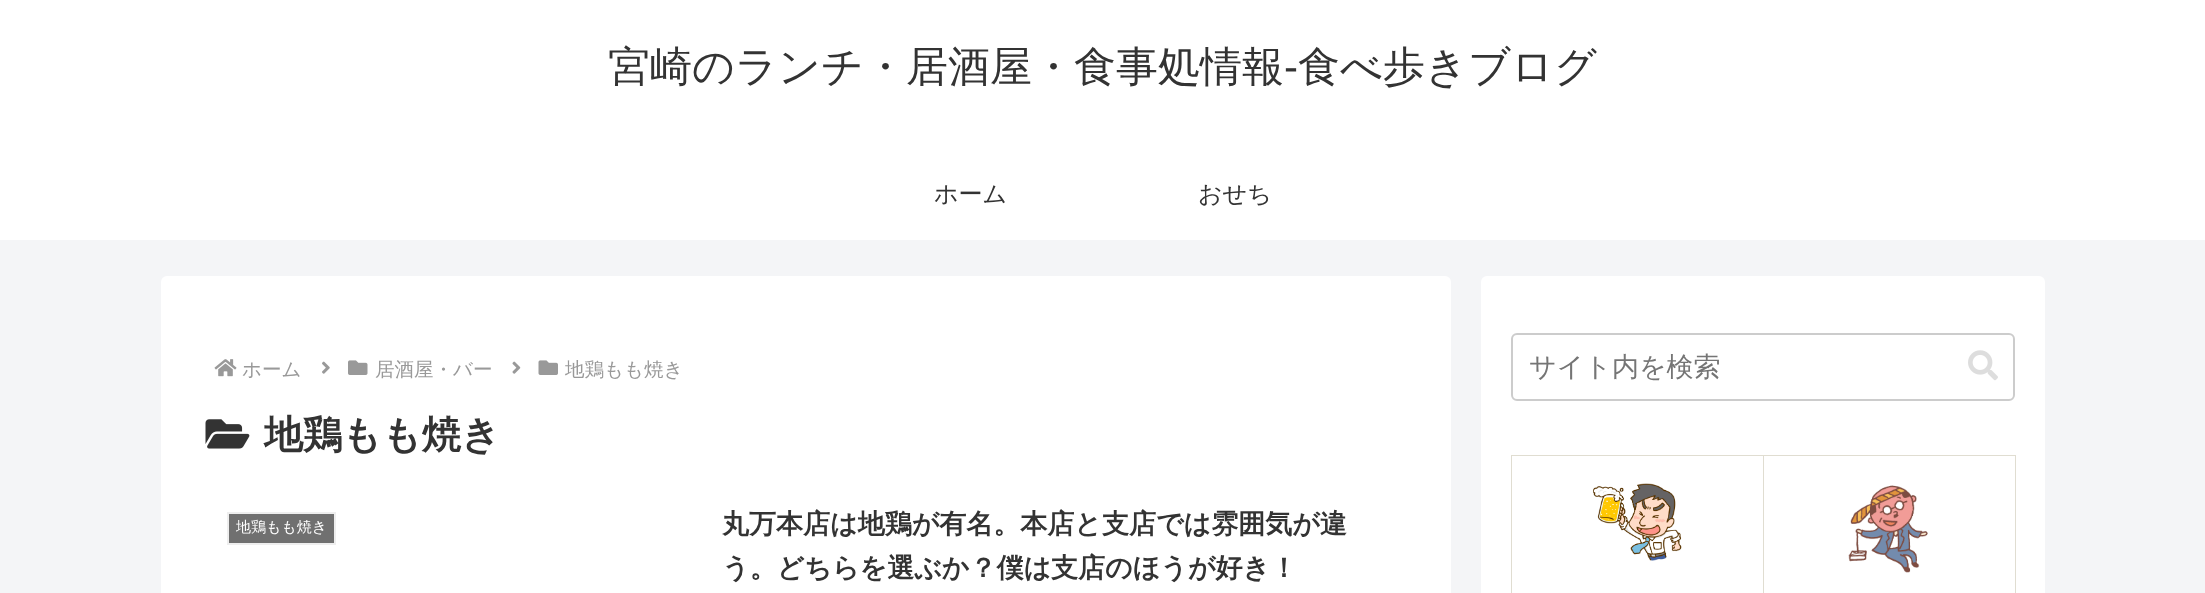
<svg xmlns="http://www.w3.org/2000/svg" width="2205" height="593">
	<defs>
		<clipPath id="clip1"><rect x="1511" y="455" width="252" height="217" /></clipPath>
		<clipPath id="clip2"><rect x="1763" y="455" width="252" height="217" /></clipPath>
	</defs>
	<rect width="100%" height="100%" fill="#F4F5F7" />
	<rect x="0" y="0" width="2205" height="240" fill="#FFFFFF" />
	<text x="608" y="81" font-family="WenQuanYi Zen Hei" font-size="42" font-weight="500" fill="#333333">宮崎のランチ・居酒屋・食事処情報</text>
	<text x="1284" y="81" font-family="Liberation Sans" font-size="42" fill="#333333">-</text>
	<text x="1298" y="81" font-family="WenQuanYi Zen Hei" font-size="42" font-weight="500" fill="#333333">食べ歩きブログ</text>
	<g font-family="WenQuanYi Zen Hei" font-size="24" font-weight="500" fill="#333333">
		<text x="934" y="202">ホーム</text>
		<text x="1198" y="202">おせち</text>
	</g>
	<rect x="161" y="276" width="1290" height="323" rx="6" fill="#FFFFFF" />
	<image x="214" y="359" width="23" height="18" href="assets/img1.png" />
	<text x="242" y="376" font-family="WenQuanYi Zen Hei" font-size="19.5" font-weight="500" fill="#999999">ホーム</text>
	<image x="322" y="361" width="8" height="13" href="assets/img2.png" />
	<image x="348" y="360" width="20" height="15" href="assets/img3.png" />
	<text x="375" y="376" font-family="WenQuanYi Zen Hei" font-size="19.5" font-weight="500" fill="#999999">居酒屋・バー</text>
	<image x="512" y="361" width="9" height="13" href="assets/img4.png" />
	<image x="538" y="360" width="20" height="15" href="assets/img5.png" />
	<text x="565" y="376" font-family="WenQuanYi Zen Hei" font-size="19.5" font-weight="500" fill="#999999">地鶏もも焼き</text>
	<image x="205" y="419" width="45" height="30" href="assets/img6.png" />
	<text x="264" y="448" font-family="WenQuanYi Zen Hei" font-size="39" font-weight="700" fill="#333333">地鶏もも焼き</text>
	<rect x="228" y="513" width="107" height="31" fill="#707070" stroke="#EEEEEE" stroke-width="2" />
	<text x="236" y="532" font-family="WenQuanYi Zen Hei" font-size="15" font-weight="500" fill="#FFFFFF">地鶏もも焼き</text>
	<g font-family="WenQuanYi Zen Hei" font-size="27" font-weight="700" fill="#333333">
		<text x="722" y="533">丸万本店は地鶏が有名。本店と支店では雰囲気が違</text>
		<text x="722" y="577">う。どちらを選ぶか？僕は支店のほうが好き！</text>
	</g>
	<rect x="1481" y="276" width="564" height="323" rx="6" fill="#FFFFFF" />
	<rect x="1512" y="334" width="502" height="66" rx="5" fill="none" stroke="#CCCCCC" stroke-width="2" />
	<text x="1529" y="376" font-family="WenQuanYi Zen Hei" font-size="27" font-weight="500" fill="#757575">サイト内を検索</text>
	<image x="1968" y="350" width="30" height="31" href="assets/img7.png" />
	<g clip-path="url(#clip1)">
		<path d="M1362 306H1911V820H1362ZM1512 456H1764V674H1512Z" fill="#E0DDD1" fill-rule="evenodd" />
	</g>
	<image x="1593" y="483" width="89" height="78" href="assets/img8.png" />
	<rect x="2015" y="455" width="1" height="138" fill="#E0DDD1" />
	<g clip-path="url(#clip2)">
		<path d="M1614 306H2163V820H1614ZM1764 456H2016V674H1764Z" fill="#E0DDD1" fill-rule="evenodd" />
	</g>
	<image x="1848" y="485" width="80" height="88" href="assets/img9.png" />
</svg>
